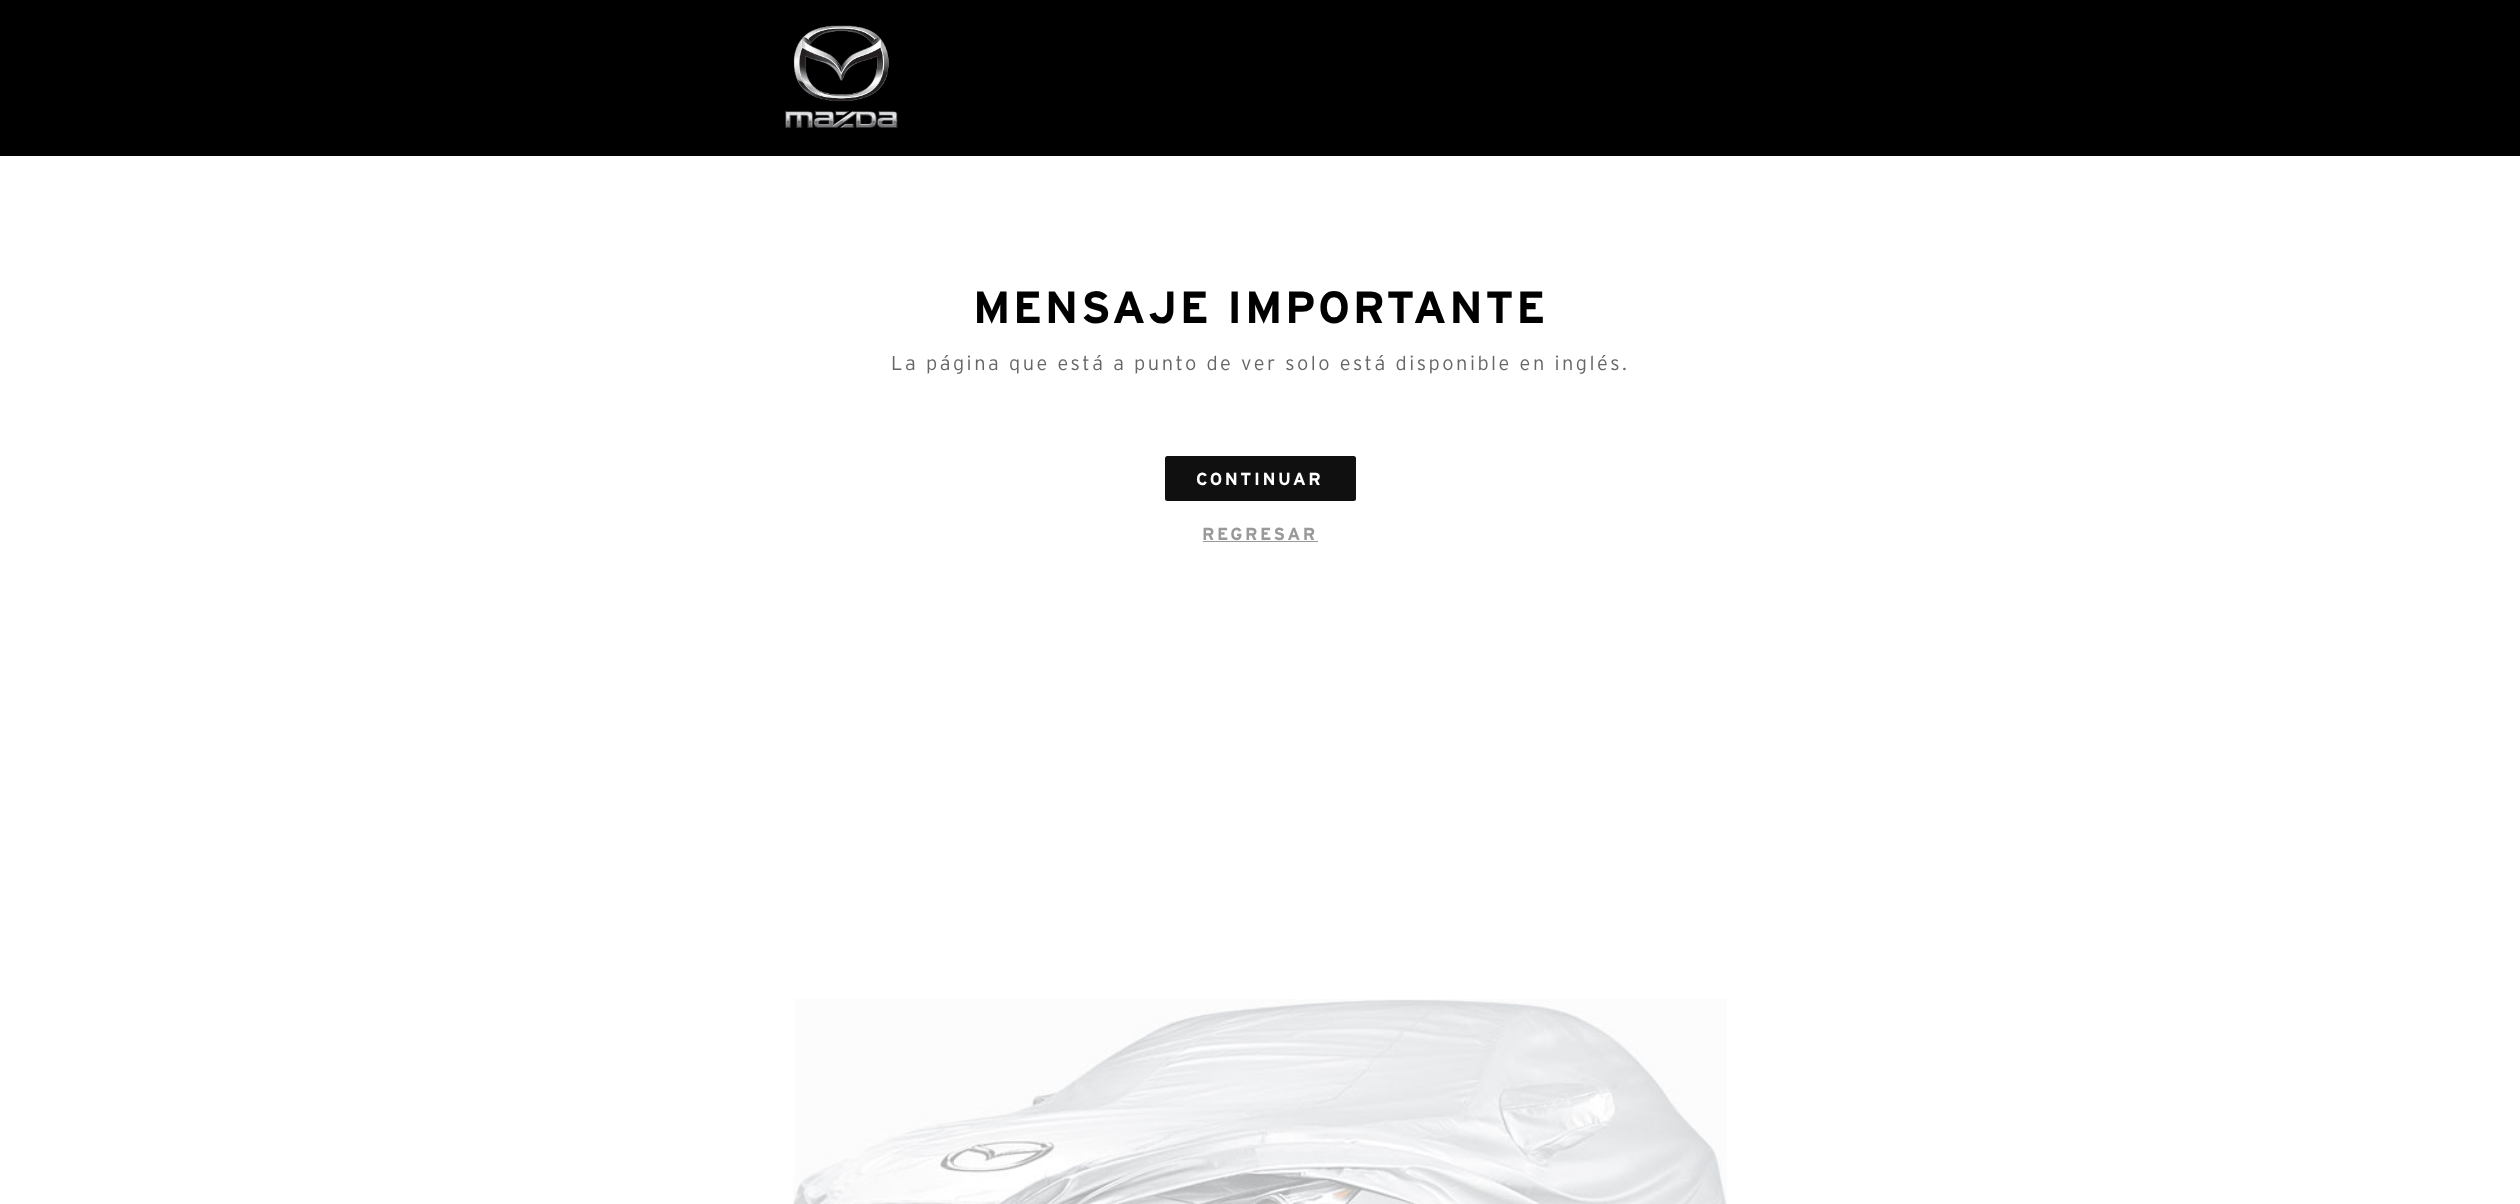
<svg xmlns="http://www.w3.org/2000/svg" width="2520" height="1204">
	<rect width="100%" height="100%" fill="#FFFFFF" />
	<image x="793" y="999" width="934" height="205" href="assets/img1.png" />
	<rect x="0" y="0" width="2520" height="156" fill="#000000" />
	<image x="785" y="25" width="113" height="103" href="assets/img2.png" />
	<text x="973" y="323" font-family="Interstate" font-size="45" font-weight="700" letter-spacing="2.5" fill="#000000">MENSAJE IMPORTANTE</text>
	<text x="891" y="370" font-family="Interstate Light" font-size="20" font-weight="300" letter-spacing="2.5" fill="#666666">La página que está a punto de ver solo está disponible en inglés.</text>
	<rect x="1165" y="456" width="191" height="45" rx="2.5" fill="#101010" />
	<text x="1196" y="485" font-family="Interstate" font-size="17.5" font-weight="700" letter-spacing="2.5" fill="#FFFFFF">CONTINUAR</text>
	<text x="1202" y="540" font-family="Interstate" font-size="17.5" font-weight="700" letter-spacing="2.5" fill="#999999">REGRESAR</text>
	<rect x="1203" y="541" width="115" height="1" fill="#999999" />
</svg>
